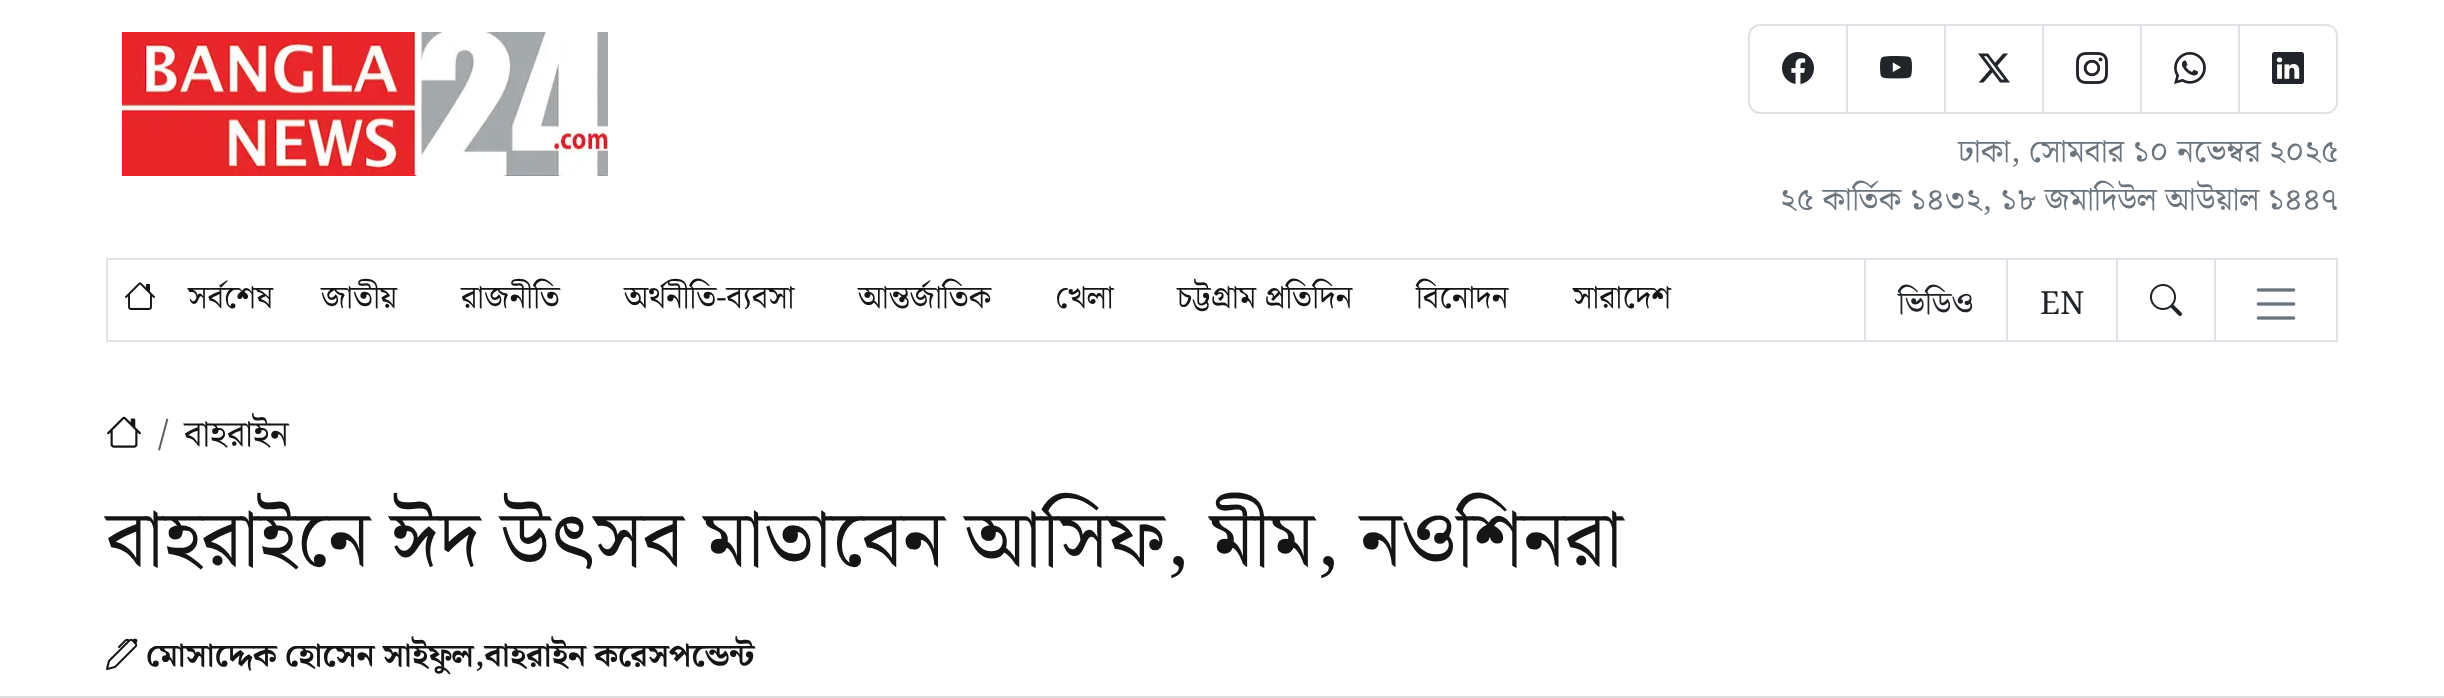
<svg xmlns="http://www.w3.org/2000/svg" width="2444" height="698">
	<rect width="100%" height="100%" fill="#FFFFFF" />
	<image x="122" y="32" width="486" height="144" href="assets/img1.png" />
	<path d="M1760 25H1847V113H1760C1754 113 1749 108 1749 102V36C1749 30 1754 25 1760 25Z" fill="none" stroke="#DEE2E6" stroke-width="2" />
	<image x="1782" y="52" width="32" height="32" href="assets/img2.png" />
	<rect x="1848" y="24" width="392" height="2" fill="#DEE2E6" />
	<rect x="1944" y="24" width="2" height="90" fill="#DEE2E6" />
	<rect x="1848" y="112" width="98" height="2" fill="#DEE2E6" />
	<image x="1880" y="55" width="32" height="24" href="assets/img3.png" />
	<rect x="2042" y="24" width="2" height="90" fill="#DEE2E6" />
	<rect x="1946" y="112" width="98" height="2" fill="#DEE2E6" />
	<image x="1978" y="53" width="32" height="30" href="assets/img4.png" />
	<rect x="2140" y="24" width="2" height="90" fill="#DEE2E6" />
	<rect x="2044" y="112" width="98" height="2" fill="#DEE2E6" />
	<image x="2076" y="52" width="32" height="32" href="assets/img5.png" />
	<rect x="2238" y="24" width="2" height="90" fill="#DEE2E6" />
	<rect x="2142" y="112" width="98" height="2" fill="#DEE2E6" />
	<image x="2174" y="52" width="32" height="32" href="assets/img6.png" />
	<path d="M2240 24H2326C2333 24 2338 29 2338 36V102C2338 109 2333 114 2326 114H2240ZM2240 26H2326C2332 26 2336 30 2336 36V102C2336 108 2332 112 2326 112H2240Z" fill="#DEE2E6" fill-rule="evenodd" />
	<image x="2272" y="52" width="32" height="32" href="assets/img7.png" />
	<g font-family="Noto Serif Bengali" font-size="32" fill="#6C757D">
		<text x="1958" y="162">ঢাকা, সোমবার ১০ নভেম্বর ২০২৫</text>
		<text x="1780" y="210">২৫ কার্তিক ১৪৩২, ১৮ জমাদিউল আউয়াল ১৪৪৭</text>
	</g>
	<rect x="107" y="259" width="2230" height="82" fill="none" stroke="#DEE2E6" stroke-width="2" />
	<image x="125" y="282" width="30" height="28" href="assets/img8.png" />
	<g font-family="Noto Serif Bengali" font-size="32" fill="#141514">
		<text x="188" y="308">সর্বশেষ</text>
		<text x="321" y="308">জাতীয়</text>
		<text x="461" y="308">রাজনীতি</text>
		<text x="624" y="308">অর্থনীতি-ব্যবসা</text>
		<text x="858" y="308">আন্তর্জাতিক</text>
		<text x="1055" y="308">খেলা</text>
		<text x="1177" y="308">চট্টগ্রাম প্রতিদিন</text>
		<text x="1416" y="308">বিনোদন</text>
		<text x="1573" y="308">সারাদেশ</text>
	</g>
	<rect x="2006" y="260" width="2" height="80" fill="#DEE2E6" />
	<rect x="1864" y="260" width="2" height="80" fill="#DEE2E6" />
	<text x="1898" y="314" font-family="Noto Serif Bengali" font-size="32" fill="#212529">ভিডিও</text>
	<rect x="2116" y="260" width="2" height="80" fill="#DEE2E6" />
	<text x="2040" y="314" font-family="Noto Serif Bengali" font-size="32" fill="#212529">EN</text>
	<rect x="2214" y="260" width="2" height="80" fill="#DEE2E6" />
	<image x="2150" y="284" width="32" height="32" href="assets/img9.png" />
	<image x="2256" y="288" width="40" height="32" href="assets/img10.png" />
	<image x="107" y="416" width="34" height="32" href="assets/img11.png" />
	<text x="158" y="446" font-family="Noto Serif Bengali" font-size="36" fill="#595C5F">/</text>
	<text x="184" y="446" font-family="Noto Serif Bengali" font-size="36" fill="#141514">বাহরাইন</text>
	<text x="106" y="566" font-family="Noto Serif Bengali" font-size="80" fill="#141514">বাহরাইনে ঈদ উৎসব মাতাবেন আসিফ, মীম, নওশিনরা</text>
	<image x="106" y="638" width="32" height="32" href="assets/img12.png" />
	<text x="146" y="666" font-family="Noto Serif Bengali" font-size="32" font-weight="700" fill="#141514">মোসাদ্দেক হোসেন সাইফুল,বাহরাইন করেসপন্ডেন্ট</text>
	<rect x="0" y="696" width="2444" height="2" fill="#DDDDDD" />
</svg>
